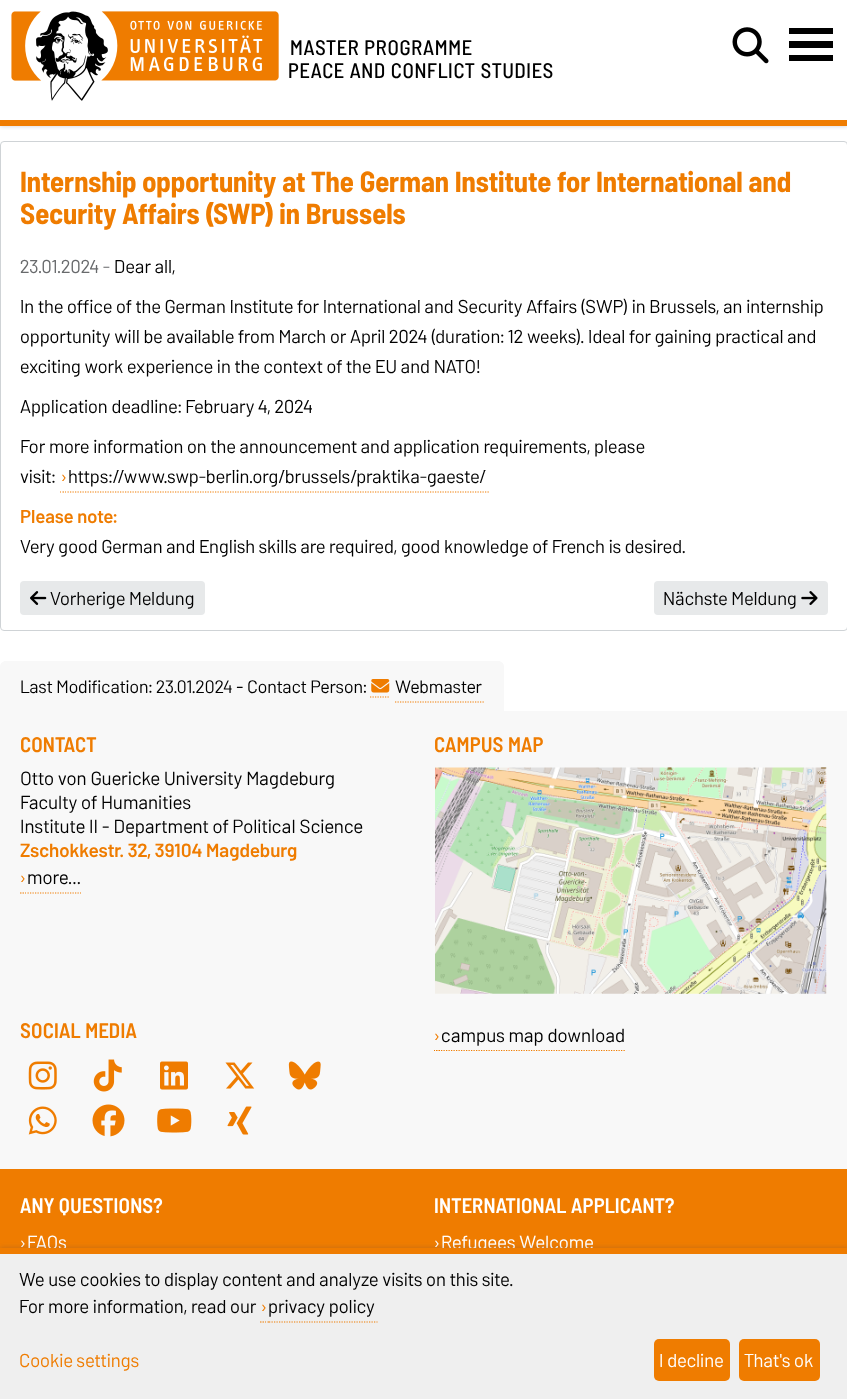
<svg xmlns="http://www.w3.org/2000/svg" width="847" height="1399">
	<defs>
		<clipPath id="clip1"><rect x="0" y="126" width="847" height="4" /></clipPath>
	</defs>
	<rect width="100%" height="100%" fill="#FFFFFF" />
	<g clip-path="url(#clip1)">
		<rect x="0" y="0" width="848" height="126" fill="#434755" fill-opacity="0.27" filter="blur(2.5px)" />
	</g>
	<rect x="0" y="120" width="847" height="6" fill="#EF7C00" />
	<image x="11" y="11" width="268" height="90" href="assets/img1.png" />
	<g font-family="Barlow Semi Condensed" font-size="21" font-weight="500" letter-spacing="0.7" fill="#000000">
		<text x="290" y="55">MASTER PROGRAMME</text>
		<text x="288" y="78">PEACE AND CONFLICT STUDIES</text>
	</g>
	<image x="732" y="27" width="37" height="37" href="assets/img2.png" />
	<rect x="789" y="28" width="44" height="6" fill="#000000" />
	<rect x="789" y="41" width="44" height="7" fill="#000000" />
	<rect x="789" y="55" width="44" height="6" fill="#000000" />
	<rect x="0.5" y="141.5" width="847" height="489" rx="3.5" fill="none" stroke="#CFD3D6" />
	<g font-family="Barlow Semi Condensed" font-size="29" font-weight="700" fill="#EF7C00">
		<text x="20" y="192">Internship opportunity at The German Institute for International and</text>
		<text x="20" y="224">Security Affairs (SWP) in Brussels</text>
	</g>
	<text x="20" y="273" font-family="Barlow" font-size="18.6" fill="#686A6C">23.01.2024 -</text>
	<g font-family="Barlow" font-size="18.6" fill="#000000">
		<text x="114" y="273">Dear all,</text>
		<text x="20" y="313">In the office of the German Institute for International and Security Affairs (SWP) in Brussels, an internship</text>
		<text x="20" y="343">opportunity will be available from March or April 2024 (duration: 12 weeks). Ideal for gaining practical and</text>
		<text x="20" y="373">exciting work experience in the context of the EU and NATO!</text>
		<text x="20" y="413">Application deadline: February 4, 2024</text>
		<text x="20" y="453">For more information on the announcement and application requirements, please</text>
		<text x="20" y="483">visit:</text>
	</g>
	<text x="61" y="483" font-family="Barlow" font-size="18" fill="#EF7C00">›</text>
	<path d="M60 492H61M62.5 492H64M65 492H66" fill="none" stroke="#EF7C00" stroke-width="1.2" />
	<text x="68" y="483" font-family="Barlow" font-size="18.6" fill="#000000">https://www.swp-berlin.org/brussels/praktika-gaeste/</text>
	<path d="M67.5 492H489" fill="none" stroke="#EF7C00" stroke-width="1.2" stroke-dasharray="1.25 1.25" />
	<text x="20" y="523" font-family="Barlow" font-size="18.6" font-weight="600" fill="#EF7C00">Please note:</text>
	<text x="20" y="553" font-family="Barlow" font-size="18.6" fill="#000000">Very good German and English skills are required, good knowledge of French is desired.</text>
	<rect x="20" y="581" width="185" height="34" rx="4" fill="#E7E9EA" />
	<image x="30" y="591" width="17" height="14" href="assets/img3.png" />
	<text x="50" y="605" font-family="Barlow" font-size="18.6" fill="#000000">Vorherige Meldung</text>
	<rect x="654" y="581" width="174" height="34" rx="4" fill="#E7E9EA" />
	<text x="663" y="605" font-family="Barlow" font-size="18.6" fill="#000000">Nächste Meldung</text>
	<image x="801" y="591" width="17" height="14" href="assets/img4.png" />
	<path d="M6 661H498C501.5 661 504 663.5 504 667V711H0V667C0 663.5 2.5 661 6 661Z" fill="#F8F8F8" />
	<text x="20" y="693" font-family="Barlow" font-size="18" fill="#000000">Last Modification: 23.01.2024 - Contact Person:</text>
	<path d="M370 697H390" fill="none" stroke="#EF7C00" stroke-width="1.2" stroke-dasharray="1.25 1.25" />
	<path d="M395 702H484" fill="none" stroke="#EF7C00" stroke-width="1.2" stroke-dasharray="1.25 1.25" />
	<image x="371" y="679" width="19" height="14" href="assets/img5.png" />
	<text x="395" y="693" font-family="Barlow" font-size="18" fill="#000000">Webmaster</text>
	<rect x="0" y="711" width="847" height="458" fill="#F8F8F8" />
	<text x="20" y="752" font-family="Barlow Semi Condensed" font-size="21" font-weight="600" letter-spacing="0.2" fill="#EF7C00">CONTACT</text>
	<g font-family="Barlow" font-size="19" fill="#000000">
		<text x="20" y="785">Otto von Guericke University Magdeburg</text>
		<text x="20" y="809">Faculty of Humanities</text>
		<text x="20" y="833">Institute II - Department of Political Science</text>
	</g>
	<text x="20" y="857" font-family="Barlow" font-size="19" font-weight="600" fill="#EF7C00">Zschokkestr. 32, 39104 Magdeburg</text>
	<text x="20" y="884" font-family="Barlow" font-size="18" fill="#EF7C00">›</text>
	<path d="M20 893H21.5M22.5 893H24M25 893H26" fill="none" stroke="#EF7C00" stroke-width="1.2" />
	<text x="27" y="884" font-family="Barlow" font-size="19" fill="#000000">more…</text>
	<path d="M27.5 893H81" fill="none" stroke="#EF7C00" stroke-width="1.2" stroke-dasharray="1.25 1.25" />
	<text x="434" y="752" font-family="Barlow Semi Condensed" font-size="21" font-weight="600" letter-spacing="0.2" fill="#EF7C00">CAMPUS MAP</text>
	<image x="435" y="767" width="392" height="227" href="assets/img6.png" />
	<text x="20" y="1038" font-family="Barlow Semi Condensed" font-size="21" font-weight="600" letter-spacing="0.2" fill="#EF7C00">SOCIAL MEDIA</text>
	<image x="28" y="1061" width="29" height="29" href="assets/img7.png" />
	<image x="93" y="1059" width="29" height="33" href="assets/img8.png" />
	<image x="160" y="1061" width="28" height="29" href="assets/img9.png" />
	<image x="225" y="1062" width="30" height="27" href="assets/img10.png" />
	<image x="288" y="1061" width="33" height="29" href="assets/img11.png" />
	<image x="28" y="1106" width="29" height="29" href="assets/img12.png" />
	<image x="92" y="1104" width="33" height="33" href="assets/img13.png" />
	<image x="157" y="1108" width="35" height="25" href="assets/img14.png" />
	<image x="227" y="1106" width="25" height="29" href="assets/img15.png" />
	<text x="434" y="1042" font-family="Barlow" font-size="18" fill="#EF7C00">›</text>
	<path d="M434 1050.5H435M436 1050.5H437.5M438.5 1050.5H440" fill="none" stroke="#EF7C00" stroke-width="1.2" />
	<text x="441" y="1042" font-family="Barlow" font-size="19" fill="#000000">campus map download</text>
	<path d="M441 1050.5H625" fill="none" stroke="#EF7C00" stroke-width="1.2" stroke-dasharray="1.25 1.25" />
	<rect x="0" y="1169" width="847" height="79" fill="#EF7C00" />
	<text x="20" y="1213" font-family="Barlow Semi Condensed" font-size="21" font-weight="600" letter-spacing="0.2" fill="#FFFFFF">ANY QUESTIONS?</text>
	<text x="20" y="1249" font-family="Barlow" font-size="18" fill="#FFFFFF">›</text>
	<text x="27" y="1249" font-family="Barlow" font-size="19" fill="#FFFFFF">FAQs</text>
	<text x="434" y="1213" font-family="Barlow Semi Condensed" font-size="21" font-weight="600" letter-spacing="0.2" fill="#FFFFFF">INTERNATIONAL APPLICANT?</text>
	<text x="434" y="1249" font-family="Barlow" font-size="18" fill="#FFFFFF">›</text>
	<text x="441" y="1249" font-family="Barlow" font-size="19" fill="#FFFFFF">Refugees Welcome</text>
	<rect x="0" y="1248" width="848" height="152" fill="#434755" fill-opacity="0.27" filter="blur(2.5px)" />
	<rect x="0" y="1254" width="847" height="145" fill="#EFEFEF" />
	<rect x="0" y="1248" width="847" height="6" fill="#EF7C00" />
	<g font-family="Barlow" font-size="18.75" fill="#000000">
		<text x="19" y="1286">We use cookies to display content and analyze visits on this site.</text>
		<text x="19" y="1313">For more information, read our</text>
	</g>
	<text x="261" y="1313" font-family="Barlow" font-size="18" fill="#EF7C00">›</text>
	<path d="M260 1322H261.5M262.5 1322H264M265 1322H266M267.5 1322H269" fill="none" stroke="#EF7C00" stroke-width="1.2" />
	<text x="268" y="1313" font-family="Barlow" font-size="18.75" fill="#000000">privacy policy</text>
	<path d="M269 1322H377.5" fill="none" stroke="#EF7C00" stroke-width="1.2" stroke-dasharray="1.25 1.25" />
	<text x="19" y="1367" font-family="Barlow" font-size="18.75" fill="#EF7C00">Cookie settings</text>
	<rect x="654" y="1339" width="76" height="42" rx="5" fill="#EF7C00" />
	<text x="659" y="1367" font-family="Barlow" font-size="18.75" fill="#FFFFFF">I decline</text>
	<rect x="739" y="1339" width="81" height="42" rx="5" fill="#EF7C00" />
	<text x="744" y="1367" font-family="Barlow" font-size="18.75" fill="#FFFFFF">That's ok</text>
</svg>
